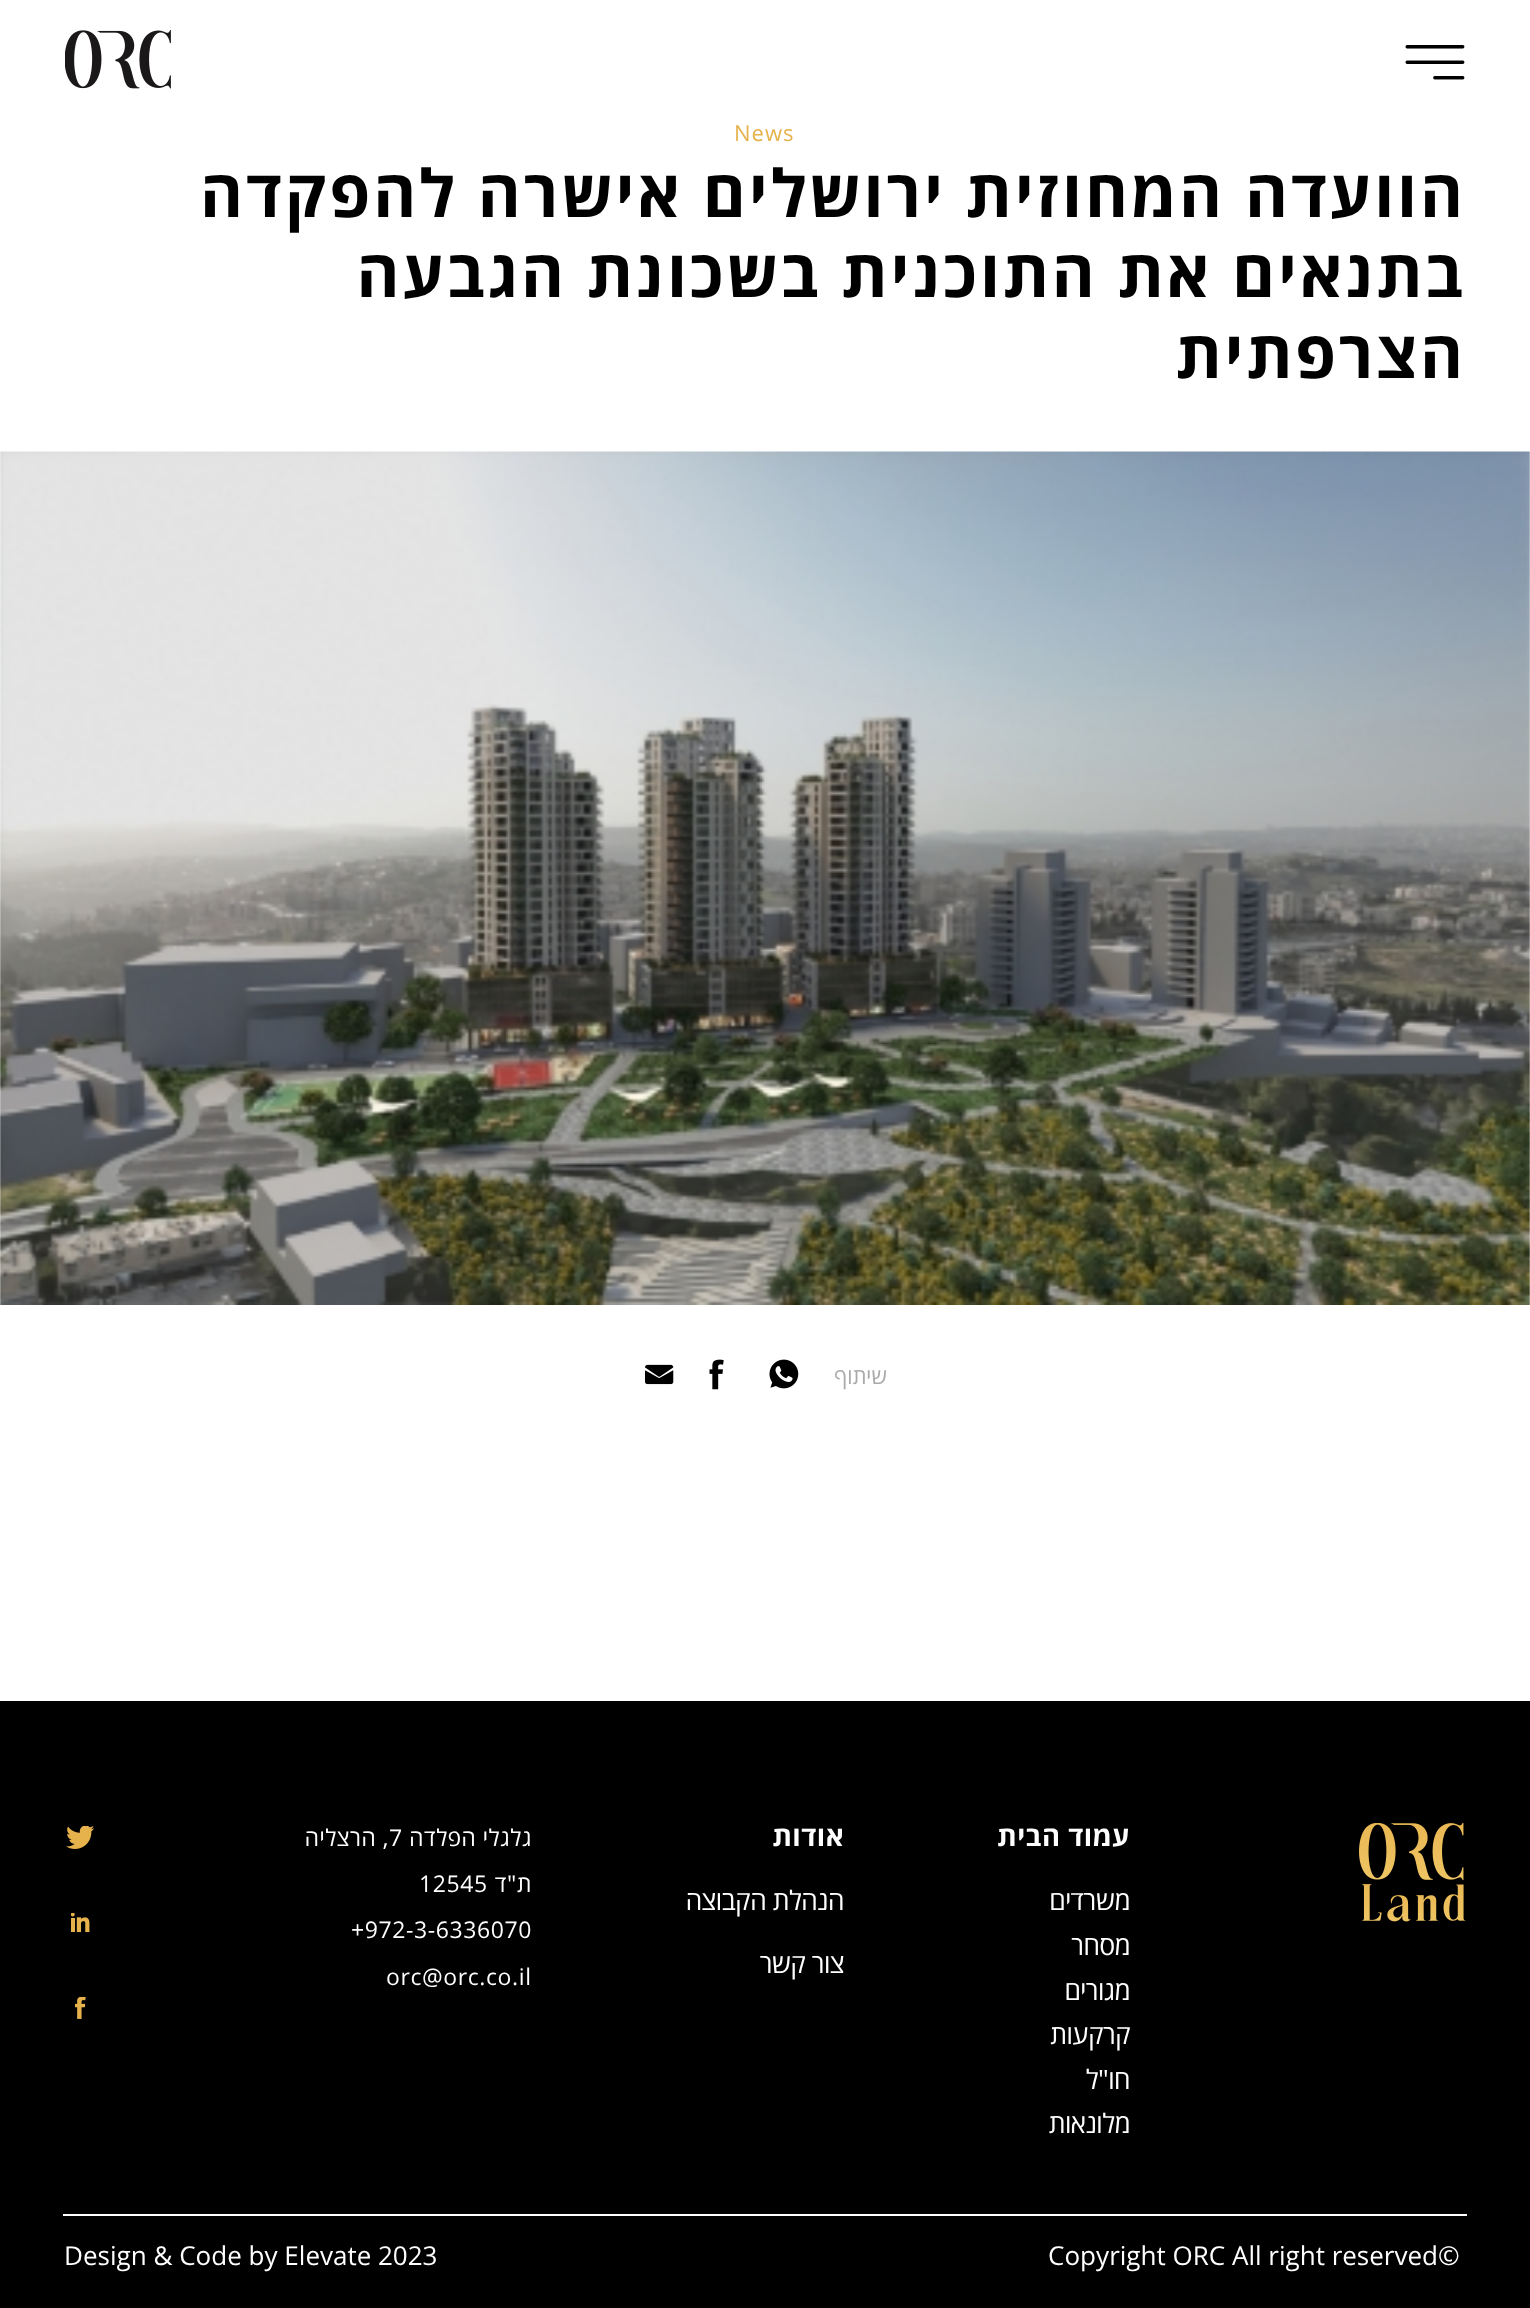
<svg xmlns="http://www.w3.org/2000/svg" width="1530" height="2308">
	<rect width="100%" height="100%" fill="#FFFFFF" />
	<image x="1405" y="45" width="60" height="35" href="assets/img1.png" />
	<image x="65" y="30" width="106" height="59" href="assets/img2.png" />
	<text x="734" y="141" font-family="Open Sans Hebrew" font-size="22" letter-spacing="1" fill="#E6B24C">News</text>
	<g font-family="Open Sans Hebrew" font-size="65.5" font-weight="700" letter-spacing="2.95" direction="rtl" fill="#000000">
		<text x="1466" y="217">הוועדה המחוזית ירושלים אישרה להפקדה</text>
		<text x="1466" y="297">בתנאים את התוכנית בשכונת הגבעה</text>
		<text x="1466" y="378">הצרפתית</text>
	</g>
	<image x="0" y="451" width="1530" height="854" href="assets/img3.png" />
	<text x="887" y="1384" font-family="Open Sans Hebrew" font-size="22" direction="rtl" fill="#AAAAAA">שיתוף</text>
	<image x="769" y="1359" width="30" height="30" href="assets/img4.png" />
	<image x="709" y="1359" width="15" height="31" href="assets/img5.png" />
	<image x="645" y="1364" width="29" height="21" href="assets/img6.png" />
	<rect x="0" y="1701" width="1530" height="607" fill="#000000" />
	<image x="1359" y="1823" width="107" height="99" href="assets/img7.png" />
	<text x="1130" y="1846" font-family="Open Sans Hebrew" font-size="27.5" font-weight="700" letter-spacing="0.5" direction="rtl" fill="#FFFFFF">עמוד הבית</text>
	<g font-family="Open Sans Hebrew" font-size="26.75" letter-spacing="-0.5" direction="rtl" fill="#FFFFFF">
		<text x="1130" y="1910">משרדים</text>
		<text x="1130" y="1955">מסחר</text>
		<text x="1130" y="2000">מגורים</text>
		<text x="1130" y="2044">קרקעות</text>
		<text x="1130" y="2089">חו"ל</text>
		<text x="1130" y="2133">מלונאות</text>
	</g>
	<text x="844" y="1846" font-family="Open Sans Hebrew" font-size="27.5" font-weight="700" letter-spacing="0.5" direction="rtl" fill="#FFFFFF">אודות</text>
	<g font-family="Open Sans Hebrew" font-size="26.75" letter-spacing="-0.5" direction="rtl" fill="#FFFFFF">
		<text x="844" y="1910">הנהלת הקבוצה</text>
		<text x="844" y="1973">צור קשר</text>
	</g>
	<text x="532" y="1846" font-family="Open Sans Hebrew" font-size="23" letter-spacing="0.6" direction="rtl" fill="#FFFFFF">גלגלי הפלדה</text>
	<text x="389" y="1846" font-family="Open Sans Hebrew" font-size="23" letter-spacing="0.6" fill="#FFFFFF">7</text>
	<g font-family="Open Sans Hebrew" font-size="23" letter-spacing="0.6" direction="rtl" fill="#FFFFFF">
		<text x="389" y="1846">, הרצליה</text>
		<text x="532" y="1892">ת"ד</text>
	</g>
	<g font-family="Open Sans Hebrew" font-size="23" letter-spacing="0.6" fill="#FFFFFF">
		<text x="419" y="1892">12545</text>
		<text x="351" y="1938">+972-3-6336070</text>
		<text x="386" y="1985">orc@orc.co.il</text>
	</g>
	<image x="66" y="1826" width="29" height="23" href="assets/img8.png" />
	<image x="71" y="1913" width="19" height="20" href="assets/img9.png" />
	<image x="75" y="1997" width="11" height="22" href="assets/img10.png" />
	<rect x="63" y="2214" width="1404" height="2" fill="#FFFFFF" />
	<g font-family="Open Sans Hebrew" font-size="26" fill="#FFFFFF">
		<text x="1048" y="2265">Copyright ORC All right reserved©</text>
		<text x="378" y="2265">2023</text>
		<text x="64" y="2265">Design &amp; Code by Elevate</text>
	</g>
</svg>
